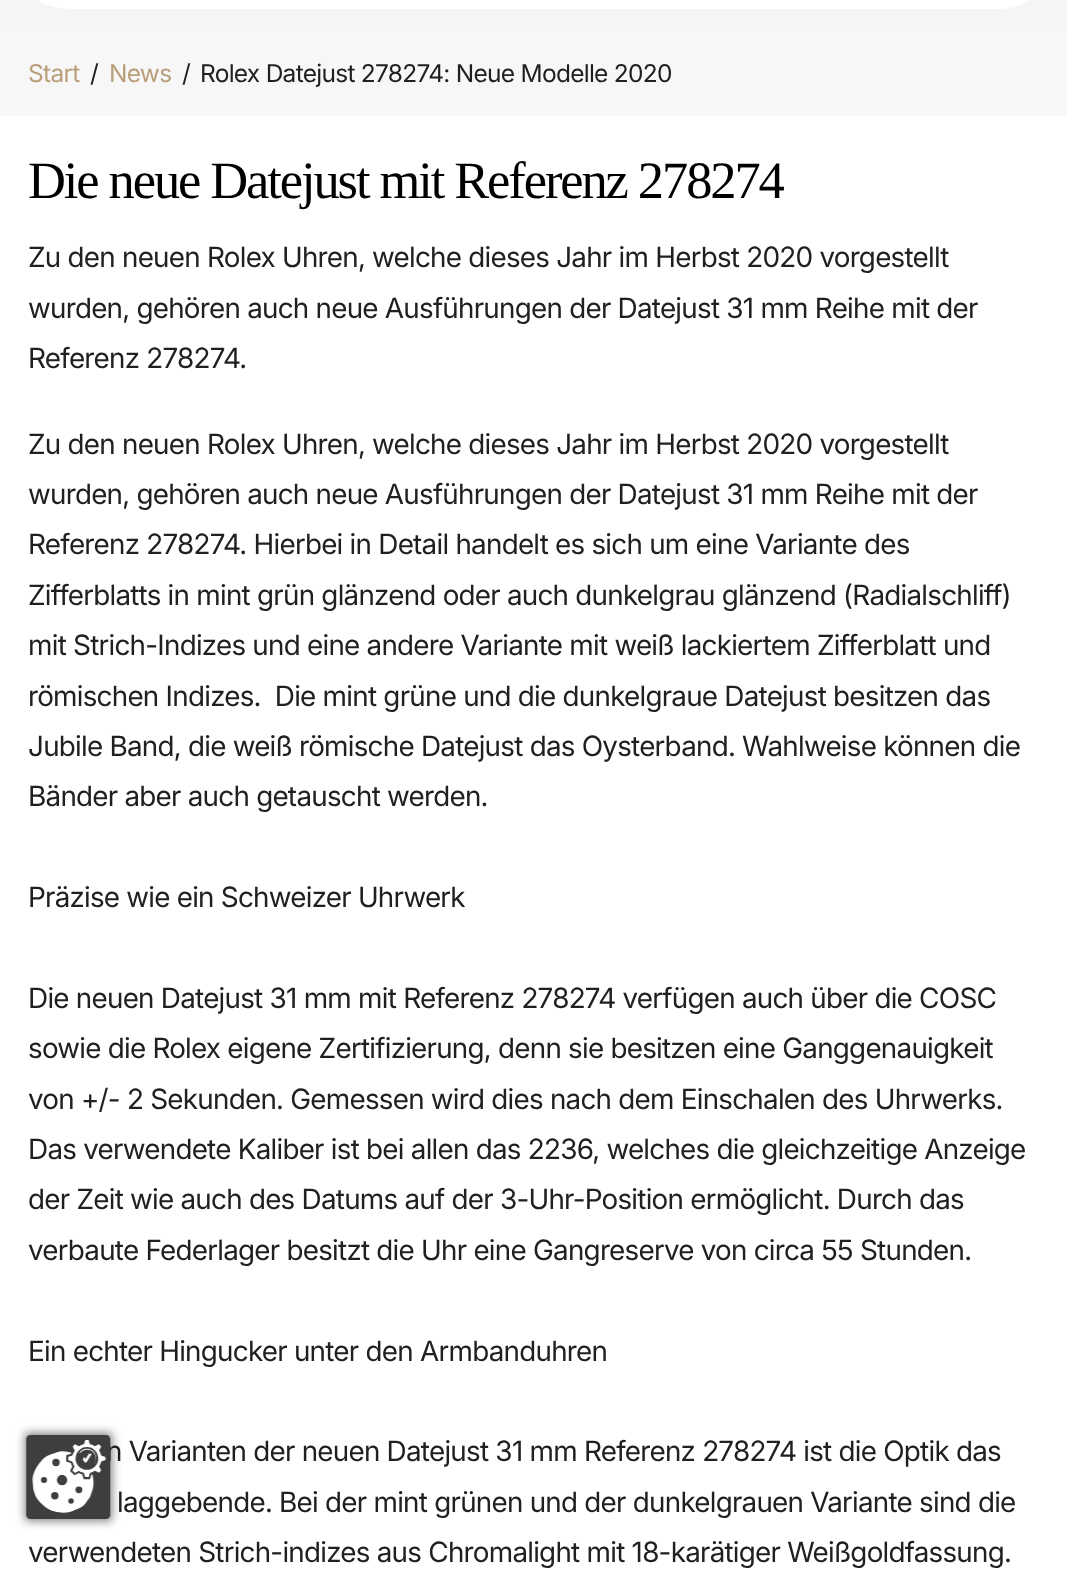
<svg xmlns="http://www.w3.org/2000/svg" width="1067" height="1589">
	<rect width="100%" height="100%" fill="#FFFFFF" />
	<rect x="0" y="0" width="1067" height="30" fill="#F5F5F5" />
	<rect x="28" y="-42" width="1012" height="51" rx="42" fill="#FFFFFF" />
	<rect x="0" y="30" width="1067" height="86" fill="#F7F7F7" />
	<text x="28" y="82" font-family="Inter" font-size="24.5" letter-spacing="-0.73" fill="#B99E7A">Start</text>
	<text x="90" y="82" font-family="Inter" font-size="24.5" letter-spacing="-0.73" fill="#202020">/</text>
	<text x="109" y="82" font-family="Inter" font-size="24.5" letter-spacing="-0.73" fill="#B99E7A">News</text>
	<g font-family="Inter" font-size="24.5" letter-spacing="-0.73" fill="#202020">
		<text x="182" y="82">/</text>
		<text x="200" y="82">Rolex Datejust 278274: Neue Modelle 2020</text>
	</g>
	<text x="28" y="198" font-family="Liberation Serif" font-size="52.5" letter-spacing="-2.1" fill="#000000">Die neue Datejust mit Referenz 278274</text>
	<g font-family="'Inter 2'" font-size="28" letter-spacing="-0.73" fill="#202020">
		<text x="28" y="267">Zu den neuen Rolex Uhren, welche dieses Jahr im Herbst 2020 vorgestellt</text>
		<text x="28" y="318">wurden, gehören auch neue Ausführungen der Datejust 31 mm Reihe mit der</text>
		<text x="28" y="368">Referenz 278274.</text>
		<text x="28" y="454">Zu den neuen Rolex Uhren, welche dieses Jahr im Herbst 2020 vorgestellt</text>
		<text x="28" y="504">wurden, gehören auch neue Ausführungen der Datejust 31 mm Reihe mit der</text>
		<text x="28" y="554">Referenz 278274. Hierbei in Detail handelt es sich um eine Variante des</text>
		<text x="28" y="605">Zifferblatts in mint grün glänzend oder auch dunkelgrau glänzend (Radialschliff)</text>
		<text x="28" y="655">mit Strich-Indizes und eine andere Variante mit weiß lackiertem Zifferblatt und</text>
		<text x="28" y="706" xml:space="preserve">römischen Indizes.  Die mint grüne und die dunkelgraue Datejust besitzen das</text>
		<text x="28" y="756">Jubile Band, die weiß römische Datejust das Oysterband. Wahlweise können die</text>
		<text x="28" y="806">Bänder aber auch getauscht werden.</text>
		<text x="28" y="907">Präzise wie ein Schweizer Uhrwerk</text>
		<text x="28" y="1008">Die neuen Datejust 31 mm mit Referenz 278274 verfügen auch über die COSC</text>
		<text x="28" y="1058">sowie die Rolex eigene Zertifizierung, denn sie besitzen eine Ganggenauigkeit</text>
		<text x="28" y="1109">von +/- 2 Sekunden. Gemessen wird dies nach dem Einschalen des Uhrwerks.</text>
		<text x="28" y="1159">Das verwendete Kaliber ist bei allen das 2236, welches die gleichzeitige Anzeige</text>
		<text x="28" y="1209">der Zeit wie auch des Datums auf der 3-Uhr-Position ermöglicht. Durch das</text>
		<text x="28" y="1260">verbaute Federlager besitzt die Uhr eine Gangreserve von circa 55 Stunden.</text>
		<text x="28" y="1361">Ein echter Hingucker unter den Armbanduhren</text>
		<text x="106" y="1461">n Varianten der neuen Datejust 31 mm Referenz 278274 ist die Optik das</text>
		<text x="117" y="1512">laggebende. Bei der mint grünen und der dunkelgrauen Variante sind die</text>
		<text x="28" y="1562">verwendeten Strich-indizes aus Chromalight mit 18-karätiger Weißgoldfassung.</text>
	</g>
	<rect x="25" y="1433" width="87" height="88" fill="#000000" fill-opacity="0.5" filter="blur(5px)" />
	<image x="26" y="1435" width="85" height="84" href="assets/img1.png" />
</svg>
